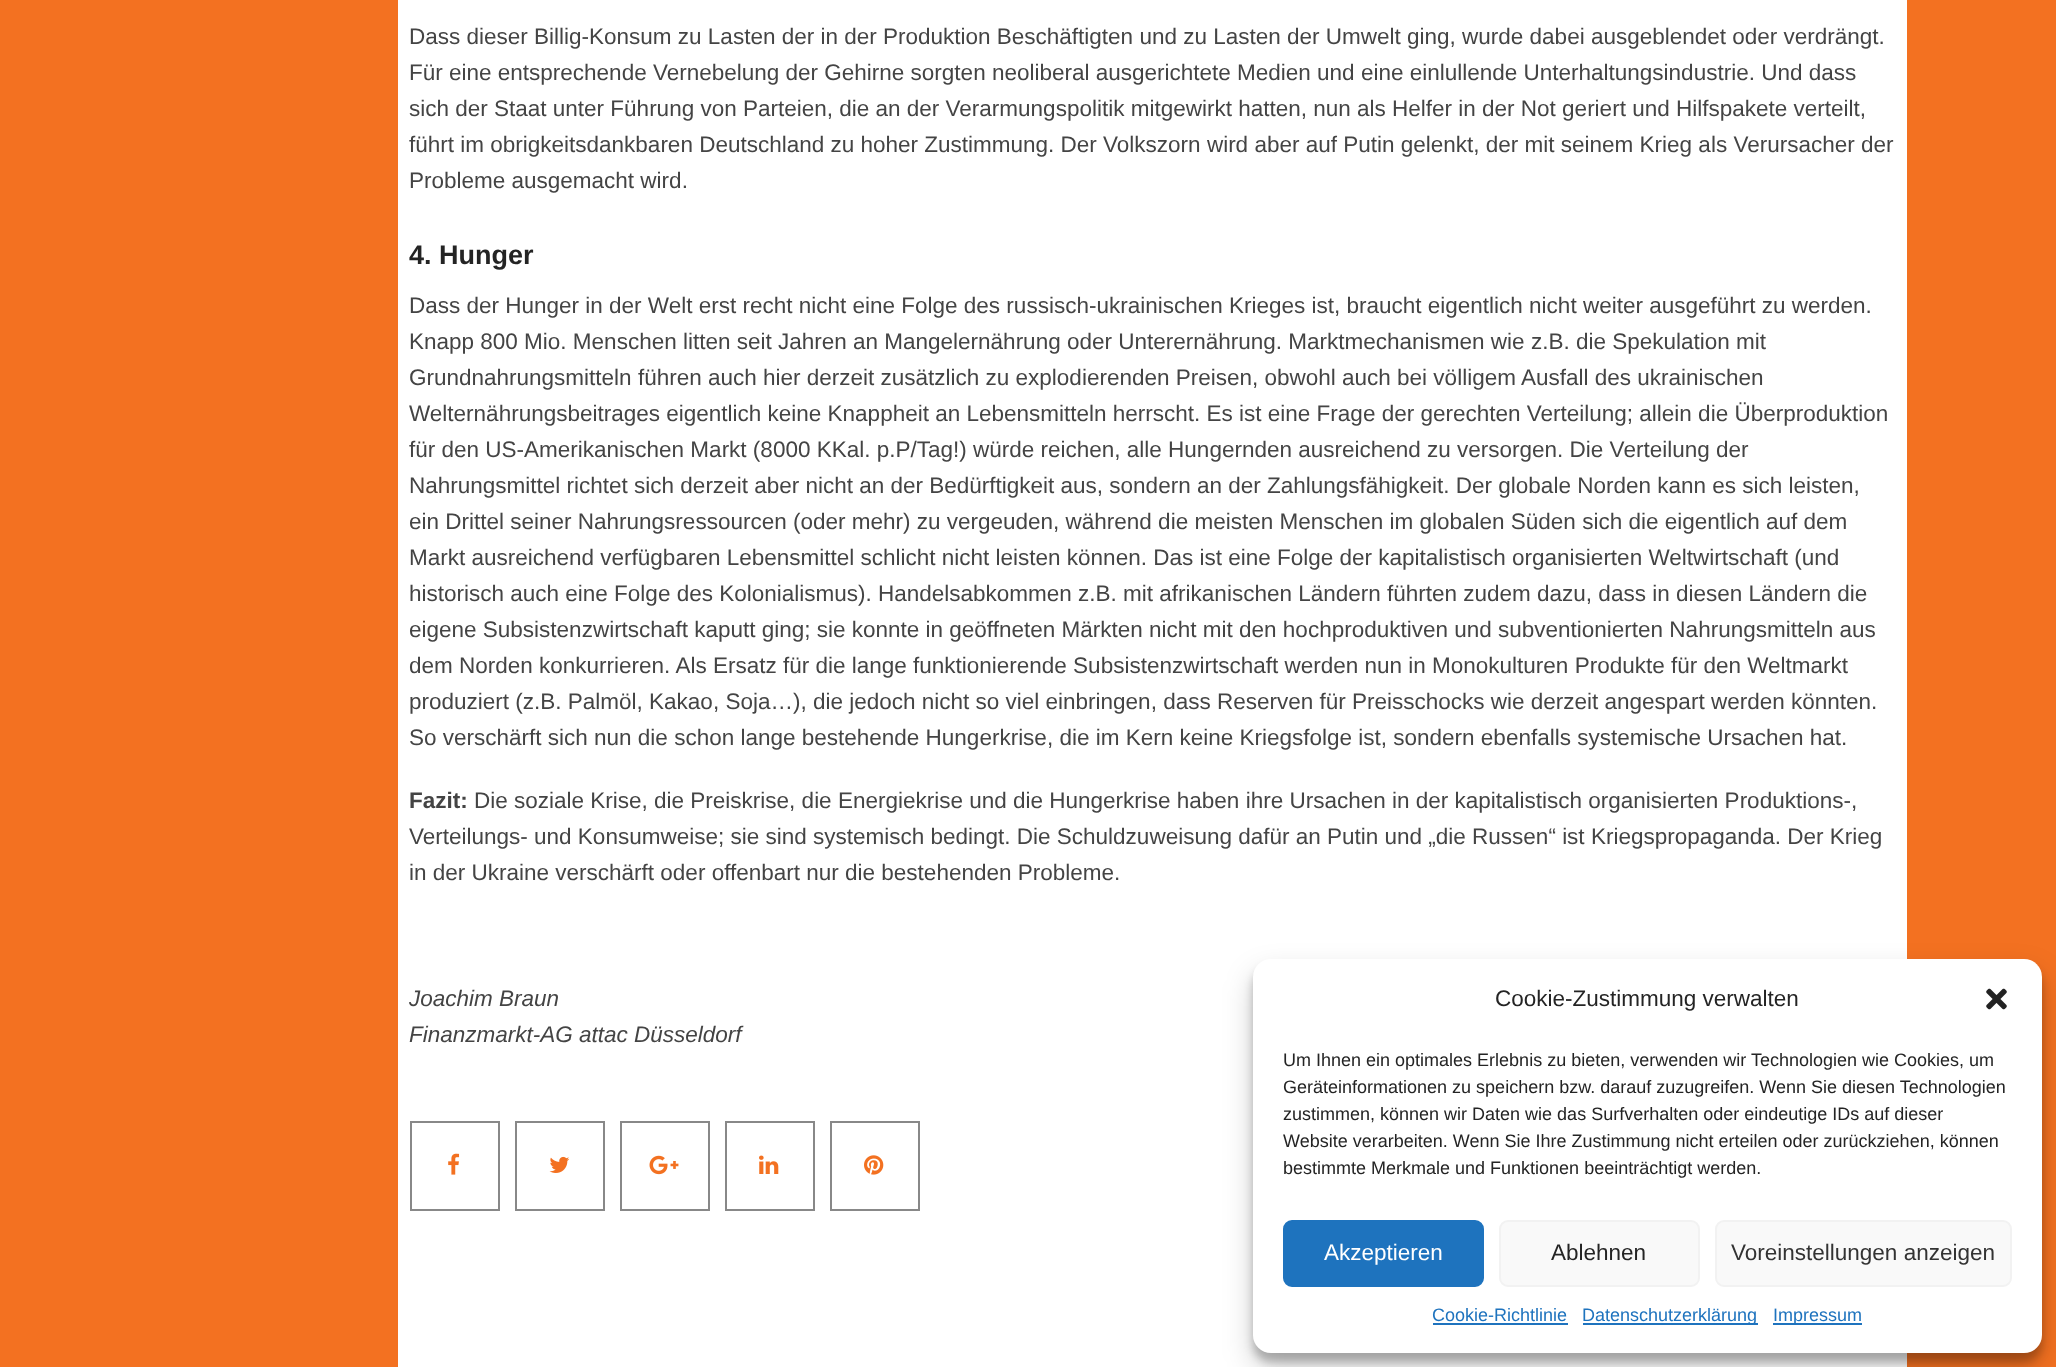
<svg xmlns="http://www.w3.org/2000/svg" width="2056" height="1367">
	<rect width="100%" height="100%" fill="#FFFFFF" />
	<rect x="0" y="0" width="398" height="1367" fill="#F37121" />
	<g font-family="Liberation Sans" font-size="22.5" fill="#444444">
		<text x="409" y="44">Dass dieser Billig-Konsum zu Lasten der in der Produktion Beschäftigten und zu Lasten der Umwelt ging, wurde dabei ausgeblendet oder verdrängt.</text>
		<text x="409" y="80">Für eine entsprechende Vernebelung der Gehirne sorgten neoliberal ausgerichtete Medien und eine einlullende Unterhaltungsindustrie. Und dass</text>
		<text x="409" y="116">sich der Staat unter Führung von Parteien, die an der Verarmungspolitik mitgewirkt hatten, nun als Helfer in der Not geriert und Hilfspakete verteilt,</text>
		<text x="409" y="152">führt im obrigkeitsdankbaren Deutschland zu hoher Zustimmung. Der Volkszorn wird aber auf Putin gelenkt, der mit seinem Krieg als Verursacher der</text>
		<text x="409" y="188">Probleme ausgemacht wird.</text>
	</g>
	<text x="409" y="264" font-family="Liberation Sans" font-size="27" font-weight="700" fill="#242424">4. Hunger</text>
	<g font-family="Liberation Sans" font-size="22.5" fill="#444444">
		<text x="409" y="313">Dass der Hunger in der Welt erst recht nicht eine Folge des russisch-ukrainischen Krieges ist, braucht eigentlich nicht weiter ausgeführt zu werden.</text>
		<text x="409" y="349">Knapp 800 Mio. Menschen litten seit Jahren an Mangelernährung oder Unterernährung. Marktmechanismen wie z.B. die Spekulation mit</text>
		<text x="409" y="385">Grundnahrungsmitteln führen auch hier derzeit zusätzlich zu explodierenden Preisen, obwohl auch bei völligem Ausfall des ukrainischen</text>
		<text x="409" y="421">Welternährungsbeitrages eigentlich keine Knappheit an Lebensmitteln herrscht. Es ist eine Frage der gerechten Verteilung; allein die Überproduktion</text>
		<text x="409" y="457">für den US-Amerikanischen Markt (8000 KKal. p.P/Tag!) würde reichen, alle Hungernden ausreichend zu versorgen. Die Verteilung der</text>
		<text x="409" y="493">Nahrungsmittel richtet sich derzeit aber nicht an der Bedürftigkeit aus, sondern an der Zahlungsfähigkeit. Der globale Norden kann es sich leisten,</text>
		<text x="409" y="529">ein Drittel seiner Nahrungsressourcen (oder mehr) zu vergeuden, während die meisten Menschen im globalen Süden sich die eigentlich auf dem</text>
		<text x="409" y="565">Markt ausreichend verfügbaren Lebensmittel schlicht nicht leisten können. Das ist eine Folge der kapitalistisch organisierten Weltwirtschaft (und</text>
		<text x="409" y="601">historisch auch eine Folge des Kolonialismus). Handelsabkommen z.B. mit afrikanischen Ländern führten zudem dazu, dass in diesen Ländern die</text>
		<text x="409" y="637">eigene Subsistenzwirtschaft kaputt ging; sie konnte in geöffneten Märkten nicht mit den hochproduktiven und subventionierten Nahrungsmitteln aus</text>
		<text x="409" y="673">dem Norden konkurrieren. Als Ersatz für die lange funktionierende Subsistenzwirtschaft werden nun in Monokulturen Produkte für den Weltmarkt</text>
		<text x="409" y="709">produziert (z.B. Palmöl, Kakao, Soja…), die jedoch nicht so viel einbringen, dass Reserven für Preisschocks wie derzeit angespart werden könnten.</text>
		<text x="409" y="745">So verschärft sich nun die schon lange bestehende Hungerkrise, die im Kern keine Kriegsfolge ist, sondern ebenfalls systemische Ursachen hat.</text>
	</g>
	<text x="409" y="808" font-family="Liberation Sans" font-size="22.5" font-weight="700" fill="#444444">Fazit:</text>
	<g font-family="Liberation Sans" font-size="22.5" fill="#444444">
		<text x="474" y="808">Die soziale Krise, die Preiskrise, die Energiekrise und die Hungerkrise haben ihre Ursachen in der kapitalistisch organisierten Produktions-,</text>
		<text x="409" y="844">Verteilungs- und Konsumweise; sie sind systemisch bedingt. Die Schuldzuweisung dafür an Putin und „die Russen“ ist Kriegspropaganda. Der Krieg</text>
		<text x="409" y="880">in der Ukraine verschärft oder offenbart nur die bestehenden Probleme.</text>
	</g>
	<g font-family="Liberation Sans" font-size="22.5" font-style="italic" fill="#444444">
		<text x="409" y="1006">Joachim Braun</text>
		<text x="409" y="1042">Finanzmarkt-AG attac Düsseldorf</text>
	</g>
	<rect x="411" y="1122" width="88" height="88" fill="none" stroke="#888888" stroke-width="2" />
	<image x="448" y="1153" width="12" height="22" href="assets/img1.png" />
	<rect x="516" y="1122" width="88" height="88" fill="none" stroke="#888888" stroke-width="2" />
	<image x="549" y="1156" width="21" height="17" href="assets/img2.png" />
	<rect x="621" y="1122" width="88" height="88" fill="none" stroke="#888888" stroke-width="2" />
	<image x="649" y="1155" width="30" height="20" href="assets/img3.png" />
	<rect x="726" y="1122" width="88" height="88" fill="none" stroke="#888888" stroke-width="2" />
	<image x="759" y="1155" width="20" height="19" href="assets/img4.png" />
	<rect x="831" y="1122" width="88" height="88" fill="none" stroke="#888888" stroke-width="2" />
	<image x="864" y="1155" width="20" height="20" href="assets/img5.png" />
	<rect x="1907" y="0" width="149" height="1367" fill="#F37121" />
	<rect x="1253" y="968" width="789" height="394" rx="18" fill="#000000" fill-opacity="0.23" filter="blur(4.5px)" />
	<rect x="1253" y="974" width="789" height="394" rx="18" fill="#000000" fill-opacity="0.19" filter="blur(15px)" />
	<rect x="1253" y="959" width="789" height="394" rx="18" fill="#FFFFFF" />
	<text x="1495" y="1006" font-family="Liberation Sans" font-size="22.5" fill="#242424">Cookie-Zustimmung verwalten</text>
	<image x="1986" y="988" width="21" height="22" href="assets/img6.png" />
	<g font-family="Liberation Sans" font-size="18" fill="#242424">
		<text x="1283" y="1066">Um Ihnen ein optimales Erlebnis zu bieten, verwenden wir Technologien wie Cookies, um</text>
		<text x="1283" y="1093">Geräteinformationen zu speichern bzw. darauf zuzugreifen. Wenn Sie diesen Technologien</text>
		<text x="1283" y="1120">zustimmen, können wir Daten wie das Surfverhalten oder eindeutige IDs auf dieser</text>
		<text x="1283" y="1147">Website verarbeiten. Wenn Sie Ihre Zustimmung nicht erteilen oder zurückziehen, können</text>
		<text x="1283" y="1174">bestimmte Merkmale und Funktionen beeinträchtigt werden.</text>
	</g>
	<rect x="1284" y="1221" width="199" height="65" rx="8" fill="#1E73BE" stroke="#1E73BE" stroke-width="2" />
	<text x="1324" y="1260" font-family="Liberation Sans" font-size="22.5" fill="#FFFFFF">Akzeptieren</text>
	<rect x="1500" y="1221" width="199" height="65" rx="8" fill="#F9F9F9" stroke="#F2F2F2" stroke-width="2" />
	<text x="1551" y="1260" font-family="Liberation Sans" font-size="22.5" fill="#242424">Ablehnen</text>
	<rect x="1716" y="1221" width="295" height="65" rx="8" fill="#F9F9F9" stroke="#F2F2F2" stroke-width="2" />
	<text x="1731" y="1260" font-family="Liberation Sans" font-size="22.5" fill="#333333">Voreinstellungen anzeigen</text>
	<text x="1432" y="1321" font-family="Liberation Sans" font-size="18" fill="#1E73BE">Cookie-Richtlinie</text>
	<rect x="1433" y="1323" width="135" height="2" fill="#1E73BE" />
	<rect x="1583" y="1323" width="175" height="2" fill="#1E73BE" />
	<text x="1582" y="1321" font-family="Liberation Sans" font-size="18" fill="#1E73BE">Datenschutzerklärung</text>
	<rect x="1773" y="1323" width="89" height="2" fill="#1E73BE" />
	<text x="1773" y="1321" font-family="Liberation Sans" font-size="18" fill="#1E73BE">Impressum</text>
</svg>
